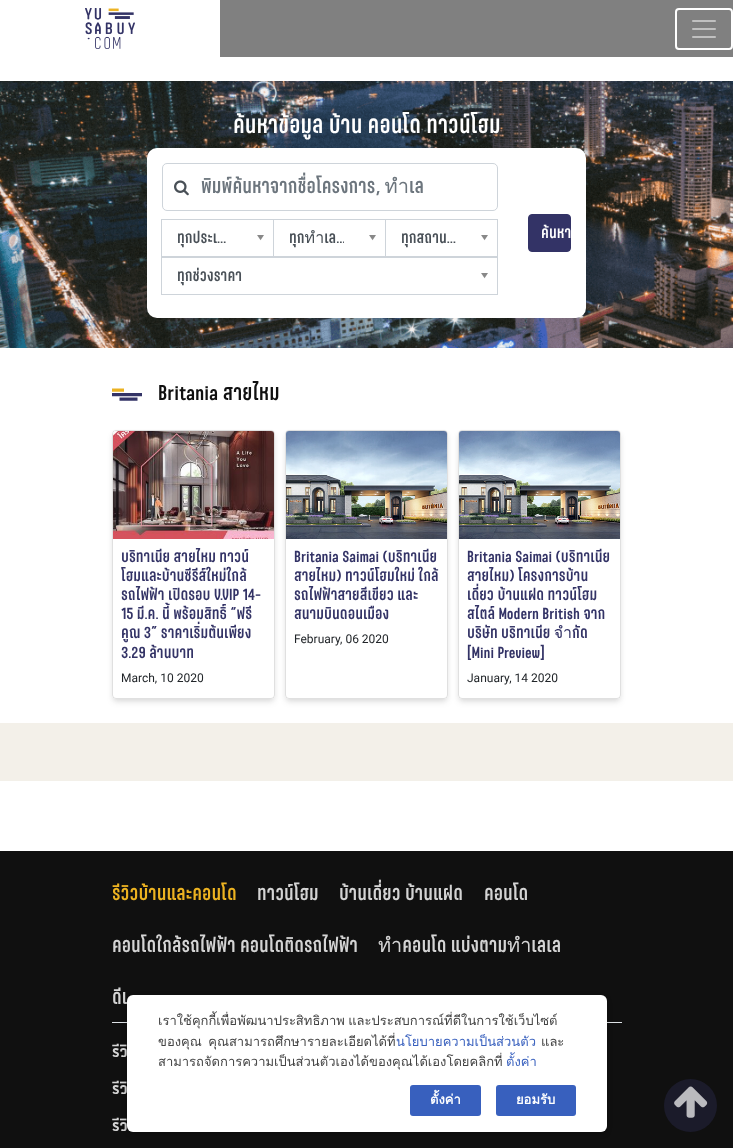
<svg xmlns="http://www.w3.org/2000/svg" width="733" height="1148">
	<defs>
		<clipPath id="clip1"><rect x="201" y="172" width="280" height="29" /></clipPath>
		<clipPath id="clip2"><rect x="177" y="226" width="55" height="24" /></clipPath>
		<clipPath id="clip3"><rect x="289" y="226" width="55" height="24" /></clipPath>
		<clipPath id="clip4"><rect x="401" y="226" width="55" height="24" /></clipPath>
		<clipPath id="clip5"><rect x="177" y="264" width="279" height="24" /></clipPath>
		<clipPath id="clip6"><rect x="112" y="1039" width="490" height="29" /></clipPath>
		<clipPath id="clip7"><rect x="112" y="1076" width="490" height="29" /></clipPath>
		<clipPath id="clip8"><rect x="112" y="1113" width="490" height="29" /></clipPath>
	</defs>
	<rect width="100%" height="100%" fill="#FFFFFF" />
	<rect x="220" y="0" width="513" height="57" fill="#808080" />
	<image x="85" y="8" width="50" height="41" href="assets/img1.png" />
	<rect x="676" y="9" width="56" height="40" rx="3" fill="none" stroke="#FFFFFF" stroke-width="2" />
	<image x="692" y="20" width="24" height="18" href="assets/img2.png" />
	<image x="0" y="81" width="733" height="267" href="assets/img3.png" />
	<text x="233" y="133" font-family="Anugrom" font-size="24" fill="#FFFFFF">ค้นหาข้อมูล บ้าน คอนโด ทาวน์โฮม</text>
	<rect x="147" y="148" width="439" height="170" rx="10" fill="#FFFFFF" />
	<rect x="162.5" y="163.5" width="335" height="47" rx="4.5" fill="none" stroke="#CED4DA" />
	<image x="174" y="180" width="15" height="16" href="assets/img4.png" />
	<g clip-path="url(#clip1)">
		<text x="201" y="193" font-family="Anugrom" font-size="20" fill="#6C757D">พิมพ์ค้นหาจากชื่อโครงการ, ทำเล</text>
	</g>
	<rect x="161.5" y="219.5" width="112" height="37" fill="none" stroke="#CED4DA" />
	<g clip-path="url(#clip2)">
		<text x="177" y="243" font-family="Anugrom" font-size="16" fill="#495057">ทุกประเ…</text>
	</g>
	<image x="257" y="235" width="7" height="6" href="assets/img5.png" />
	<rect x="273.5" y="219.5" width="112" height="37" fill="none" stroke="#CED4DA" />
	<g clip-path="url(#clip3)">
		<text x="289" y="243" font-family="Anugrom" font-size="16" fill="#495057">ทุกทำเล…</text>
	</g>
	<image x="369" y="235" width="7" height="6" href="assets/img5.png" />
	<rect x="385.5" y="219.5" width="112" height="37" fill="none" stroke="#CED4DA" />
	<g clip-path="url(#clip4)">
		<text x="401" y="243" font-family="Anugrom" font-size="16" fill="#495057">ทุกสถาน…</text>
	</g>
	<image x="481" y="235" width="7" height="6" href="assets/img5.png" />
	<rect x="161.5" y="257.5" width="336" height="37" fill="none" stroke="#CED4DA" />
	<g clip-path="url(#clip5)">
		<text x="177" y="281" font-family="Anugrom" font-size="16" fill="#495057">ทุกช่วงราคา</text>
	</g>
	<image x="481" y="273" width="7" height="6" href="assets/img5.png" />
	<rect x="528.5" y="214.5" width="42" height="37" rx="3.5" fill="#333366" stroke="#333366" />
	<text x="541" y="238" font-family="Anugrom" font-size="16" fill="#FFFFFF">ค้นหา</text>
	<image x="112" y="388" width="30" height="13" href="assets/img6.png" />
	<text x="158" y="400" font-family="Anugrom" font-size="21.5" fill="#101010">Britania สายไหม</text>
	<rect x="113" y="433" width="161" height="267" rx="3" fill="#000000" fill-opacity="0.06" filter="blur(2px)" />
	<rect x="113" y="435" width="161" height="267" rx="3" fill="#000000" fill-opacity="0.1" filter="blur(3px)" />
	<rect x="112" y="430" width="163" height="269" rx="4" fill="#FFFFFF" />
	<rect x="112.5" y="430.5" width="162" height="268" rx="3.5" fill="none" stroke="#000000" stroke-opacity="0.12" />
	<image x="113" y="431" width="161" height="108" href="assets/img7.png" />
	<g font-family="Anugrom" font-size="16" fill="#333366">
		<text x="121" y="562">บริทาเนีย สายไหม ทาวน์</text>
		<text x="121" y="581">โฮมและบ้านซีรีส์ใหม่ใกล้</text>
		<text x="121" y="600">รถไฟฟ้า เปิดรอบ V.VIP 14-</text>
		<text x="121" y="619">15 มี.ค. นี้ พร้อมสิทธิ์ “ฟรี</text>
		<text x="121" y="638">คูณ 3” ราคาเริ่มต้นเพียง</text>
		<text x="121" y="658">3.29 ล้านบาท</text>
	</g>
	<text x="121" y="682" font-family="Roboto" font-size="12" fill="#212529">March, 10 2020</text>
	<rect x="286" y="433" width="161" height="267" rx="3" fill="#000000" fill-opacity="0.06" filter="blur(2px)" />
	<rect x="286" y="435" width="161" height="267" rx="3" fill="#000000" fill-opacity="0.1" filter="blur(3px)" />
	<rect x="285" y="430" width="163" height="269" rx="4" fill="#FFFFFF" />
	<rect x="285.5" y="430.5" width="162" height="268" rx="3.5" fill="none" stroke="#000000" stroke-opacity="0.12" />
	<image x="286" y="431" width="161" height="108" href="assets/img8.png" />
	<g font-family="Anugrom" font-size="16" fill="#333366">
		<text x="294" y="562">Britania Saimai (บริทาเนีย</text>
		<text x="294" y="581">สายไหม) ทาวน์โฮมใหม่ ใกล้</text>
		<text x="294" y="600">รถไฟฟ้าสายสีเขียว และ</text>
		<text x="294" y="619">สนามบินดอนเมือง</text>
	</g>
	<text x="294" y="643" font-family="Roboto" font-size="12" fill="#212529">February, 06 2020</text>
	<rect x="459" y="433" width="161" height="267" rx="3" fill="#000000" fill-opacity="0.06" filter="blur(2px)" />
	<rect x="459" y="435" width="161" height="267" rx="3" fill="#000000" fill-opacity="0.1" filter="blur(3px)" />
	<rect x="458" y="430" width="163" height="269" rx="4" fill="#FFFFFF" />
	<rect x="458.5" y="430.5" width="162" height="268" rx="3.5" fill="none" stroke="#000000" stroke-opacity="0.12" />
	<image x="459" y="431" width="161" height="108" href="assets/img9.png" />
	<g font-family="Anugrom" font-size="16" fill="#333366">
		<text x="467" y="562">Britania Saimai (บริทาเนีย</text>
		<text x="467" y="581">สายไหม) โครงการบ้าน</text>
		<text x="467" y="600">เดี่ยว บ้านแฝด ทาวน์โฮม</text>
		<text x="467" y="619">สไตล์ Modern British จาก</text>
		<text x="467" y="638">บริษัท บริทาเนีย จำกัด</text>
		<text x="467" y="658">[Mini Preview]</text>
	</g>
	<text x="467" y="682" font-family="Roboto" font-size="12" fill="#212529">January, 14 2020</text>
	<rect x="0" y="723" width="733" height="58" fill="#F3F0E9" />
	<rect x="0" y="851" width="733" height="297" fill="#101010" />
	<rect x="112" y="1022" width="510" height="1" fill="#DEE2E6" />
	<text x="112" y="900" font-family="Anugrom" font-size="19.9" fill="#EDB321">รีวิวบ้านและคอนโด</text>
	<g font-family="Anugrom" font-size="19.9" fill="#D4D4D4">
		<text x="257" y="900">ทาวน์โฮม</text>
		<text x="339" y="900">บ้านเดี่ยว บ้านแฝด</text>
		<text x="484" y="900">คอนโด</text>
		<text x="112" y="952">คอนโดใกล้รถไฟฟ้า คอนโดติดรถไฟฟ้า</text>
		<text x="378" y="952">ทำคอนโด แบ่งตามทำเลเล</text>
		<text x="112" y="1004">ดีเ</text>
	</g>
	<g clip-path="url(#clip6)">
		<text x="112" y="1057" font-family="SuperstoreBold" font-size="22" font-weight="700" fill="#D4D4D4">รีวิ</text>
	</g>
	<g clip-path="url(#clip7)">
		<text x="112" y="1094" font-family="SuperstoreBold" font-size="22" font-weight="700" fill="#D4D4D4">รีวิ</text>
	</g>
	<g clip-path="url(#clip8)">
		<text x="112" y="1131" font-family="SuperstoreBold" font-size="22" font-weight="700" fill="#D4D4D4">รีวิ</text>
	</g>
	<rect x="127" y="997" width="480" height="137" rx="6" fill="#000000" fill-opacity="0.25" filter="blur(2.5px)" />
	<rect x="127" y="995" width="480" height="137" rx="6" fill="#FFFFFF" />
	<g font-family="Loma" font-size="13" fill="#444444">
		<text x="158" y="1025" word-spacing="-1">เราใช้คุกกี้เพื่อพัฒนาประสิทธิภาพ และประสบการณ์ที่ดีในการใช้เว็บไซต์</text>
		<text x="158" y="1046" word-spacing="2">ของคุณ คุณสามารถศึกษารายละเอียดได้ที่</text>
	</g>
	<text x="396" y="1046" font-family="Loma" font-size="13" fill="#3860BE">นโยบายความเป็นส่วนตัว</text>
	<g font-family="Loma" font-size="13" fill="#444444">
		<text x="541" y="1046">และ</text>
		<text x="158" y="1066">สามารถจัดการความเป็นส่วนตัวเองได้ของคุณได้เองโดยคลิกที่</text>
	</g>
	<text x="506" y="1066" font-family="Loma" font-size="13" fill="#3860BE">ตั้งค่า</text>
	<rect x="410" y="1085" width="71" height="31" rx="3" fill="#3860BE" />
	<text x="430" y="1104" font-family="Loma" font-size="13" font-weight="700" fill="#FFFFFF">ตั้งค่า</text>
	<rect x="496" y="1085" width="80" height="31" rx="3" fill="#3860BE" />
	<text x="516" y="1104" font-family="Loma" font-size="13" font-weight="700" fill="#FFFFFF">ยอมรับ</text>
	<circle cx="690.5" cy="1105.5" r="26.5" fill="#1B1B2A" />
	<image x="674" y="1086" width="34" height="32" href="assets/img10.png" />
</svg>
